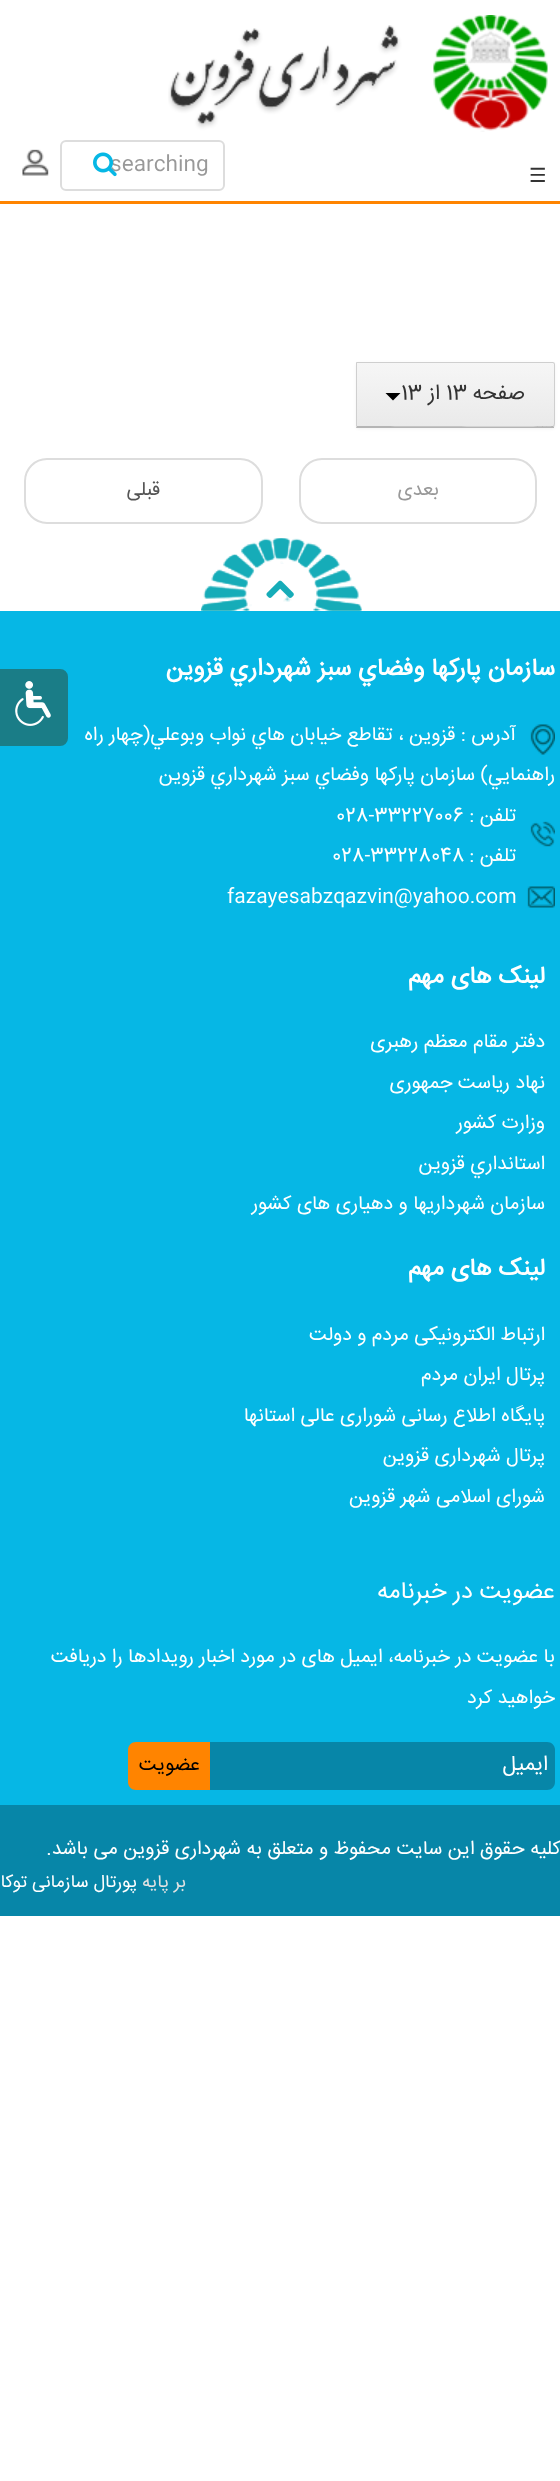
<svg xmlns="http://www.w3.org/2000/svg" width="560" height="2481">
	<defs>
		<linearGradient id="g1" gradientUnits="userSpaceOnUse" x1="455" y1="363" x2="455" y2="426"><stop offset="0" stop-color="#F6F6F6" /><stop offset="1" stop-color="#EAEAEA" /></linearGradient>
	</defs>
	<rect width="100%" height="100%" fill="#FFFFFF" />
	<rect x="0" y="201" width="560" height="3" fill="#FF8400" />
	<image x="168" y="15" width="380" height="117" href="assets/img1.png" />
	<text x="529" y="182" font-family="DejaVu Sans" font-size="19.5" fill="#333333">☰</text>
	<rect x="61" y="141" width="163" height="49" rx="5" fill="none" stroke="#DDDDDD" stroke-width="2" />
	<text x="110" y="170" font-family="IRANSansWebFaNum" font-size="21" fill="#999999">searching</text>
	<image x="93" y="152" width="24" height="25" href="assets/img2.png" />
	<image x="22" y="149" width="27" height="27" href="assets/img3.png" />
	<rect x="356" y="363" width="199" height="66" rx="3" fill="#000000" fill-opacity="0.05" filter="blur(1.5px)" />
	<path d="M356 362H552C553.5 362 555 363.5 555 365V425C555 426.5 553.5 428 552 428H356Z" fill="#F1F1F1" />
	<rect x="357" y="363" width="198" height="63" fill="url(#g1)" />
	<path d="M356 362L357 363H553L554 362H552Z" fill="#CFCFCF" />
	<path d="M554 362L555 364V424L554 427L553 426L554 424V364L553 363Z" fill="#CFCFCF" />
	<path d="M356 428L357 426C375 426 551 427 553 426L554 427V428Z" fill="#B5B5B5" />
	<path d="M357 363L356 362V427L357 426Z" fill="#CFCFCF" />
	<text x="525" y="399" font-family="IRANSansWebFaNum" font-size="21" direction="rtl" fill="#333333">صفحه</text>
	<text x="446" y="399" font-family="IRANSansWebFaNum" font-size="21" fill="#333333">13</text>
	<text x="440" y="399" font-family="IRANSansWebFaNum" font-size="21" direction="rtl" fill="#333333">از</text>
	<text x="401" y="399" font-family="IRANSansWebFaNum" font-size="21" fill="#333333">13</text>
	<path d="M385.5 393H400.5L393 400.5Z" fill="#000000" />
	<rect x="300" y="459" width="236" height="64" rx="22" fill="none" stroke="#DDDDDD" stroke-width="2" />
	<text x="439" y="495" font-family="IRANSansWebFaNum" font-size="19.5" direction="rtl" fill="#999999">بعدی</text>
	<rect x="25" y="459" width="237" height="64" rx="22" fill="none" stroke="#DDDDDD" stroke-width="2" />
	<text x="160" y="495" font-family="IRANSansWebFaNum" font-size="19.5" direction="rtl" fill="#555555">قبلی</text>
	<image x="201" y="538" width="161" height="73" href="assets/img4.png" />
	<image x="201" y="538" width="161" height="73" href="assets/img5.png" />
	<image x="266" y="580" width="28" height="18" href="assets/img6.png" />
	<rect x="0" y="611" width="560" height="1194" fill="#06B7E5" />
	<text x="555" y="675" font-family="IRANSansWebFaNum" font-size="24" font-weight="700" direction="rtl" fill="#FFFFFF">سازمان پارکها وفضاي سبز شهرداري قزوين</text>
	<image x="530" y="724" width="25" height="31" href="assets/img7.png" />
	<g font-family="IRANSansWebFaNum" font-size="19.5" direction="rtl" fill="#FFFFFF">
		<text x="516" y="740">آدرس : قزوين ، تقاطع خيابان هاي نواب وبوعلي(چهار راه</text>
		<text x="555" y="780">راهنمايي) سازمان پارکها وفضاي سبز شهرداري قزوين</text>
		<text x="516" y="821">تلفن :</text>
	</g>
	<text x="336" y="821" font-family="IRANSansWebFaNum" font-size="19.5" fill="#FFFFFF">028-33227006</text>
	<image x="530" y="821" width="25" height="26" href="assets/img8.png" />
	<text x="516" y="861" font-family="IRANSansWebFaNum" font-size="19.5" direction="rtl" fill="#FFFFFF">تلفن :</text>
	<text x="332" y="861" font-family="IRANSansWebFaNum" font-size="19.5" fill="#FFFFFF">028-33228048</text>
	<image x="527" y="886" width="28" height="22" href="assets/img9.png" />
	<text x="227" y="902" font-family="IRANSansWebFaNum" font-size="19.5" fill="#FFFFFF">fazayesabzqazvin@yahoo.com</text>
	<text x="545" y="983" font-family="IRANSansWebFaNum" font-size="24" font-weight="700" direction="rtl" fill="#FFFFFF">لینک های مهم</text>
	<g font-family="IRANSansWebFaNum" font-size="19.5" direction="rtl" fill="#FFFFFF">
		<text x="545" y="1047">دفتر مقام معظم رهبری</text>
		<text x="545" y="1088">نهاد ریاست جمهوری</text>
		<text x="545" y="1128">وزارت کشور</text>
		<text x="545" y="1169">استانداري قزوين</text>
		<text x="545" y="1209">سازمان شهرداریها و دهیاری های کشور</text>
	</g>
	<text x="545" y="1275" font-family="IRANSansWebFaNum" font-size="24" font-weight="700" direction="rtl" fill="#FFFFFF">لینک های مهم</text>
	<g font-family="IRANSansWebFaNum" font-size="19.5" direction="rtl" fill="#FFFFFF">
		<text x="545" y="1340">ارتباط الکترونیکی مردم و دولت</text>
		<text x="545" y="1380">پرتال ایران مردم</text>
		<text x="545" y="1421">پایگاه اطلاع رسانی شوراری عالی استانها</text>
		<text x="545" y="1461">پرتال شهرداری قزوین</text>
		<text x="545" y="1502">شورای اسلامی شهر قزوین</text>
	</g>
	<text x="555" y="1598" font-family="IRANSansWebFaNum" font-size="24" direction="rtl" fill="#FFFFFF">عضویت در خبرنامه</text>
	<g font-family="IRANSansWebFaNum" font-size="19.5" direction="rtl" fill="#FFFFFF">
		<text x="555" y="1662">با عضویت در خبرنامه، ایمیل های در مورد اخبار رویدادها را دریافت</text>
		<text x="555" y="1703">خواهید کرد</text>
	</g>
	<path d="M210 1742H547C551.5 1742 555 1745.5 555 1750V1782C555 1786.5 551.5 1790 547 1790H210Z" fill="#0786A8" />
	<text x="548" y="1770" font-family="IRANSansWebFaNum" font-size="21" direction="rtl" fill="#FFFFFF">ایمیل</text>
	<path d="M136 1742H210V1790H136C131.5 1790 128 1786.5 128 1782V1750C128 1745.5 131.5 1742 136 1742Z" fill="#FF8400" />
	<text x="200" y="1770" font-family="IRANSansWebFaNum" font-size="19.5" direction="rtl" fill="#000000">عضویت</text>
	<rect x="0" y="1805" width="560" height="111" fill="#0786A8" />
	<text x="561" y="1854" font-family="IRANSansWebFaNum" font-size="19.5" direction="rtl" fill="#FFFFFF">کلیه حقوق این سایت محفوظ و متعلق به شهرداری قزوین می باشد.</text>
	<text x="186" y="1887" font-family="IRANSansWebFaNum" font-size="18" direction="rtl" fill="#E2E2E2">بر پایه</text>
	<g font-family="IRANSansWebFaNum" font-size="18" direction="rtl" fill="#FFFFFF">
		<text x="137" y="1887">پورتال سازمانی</text>
		<text x="27" y="1887">توکا</text>
	</g>
	<path d="M0 670H60C64 670 67 673 67 677V738C67 742 64 745 60 745H0Z" fill="#1A7D87" stroke="#1A7D87" stroke-width="2" />
	<image x="15" y="681" width="36" height="45" href="assets/img10.png" />
</svg>
